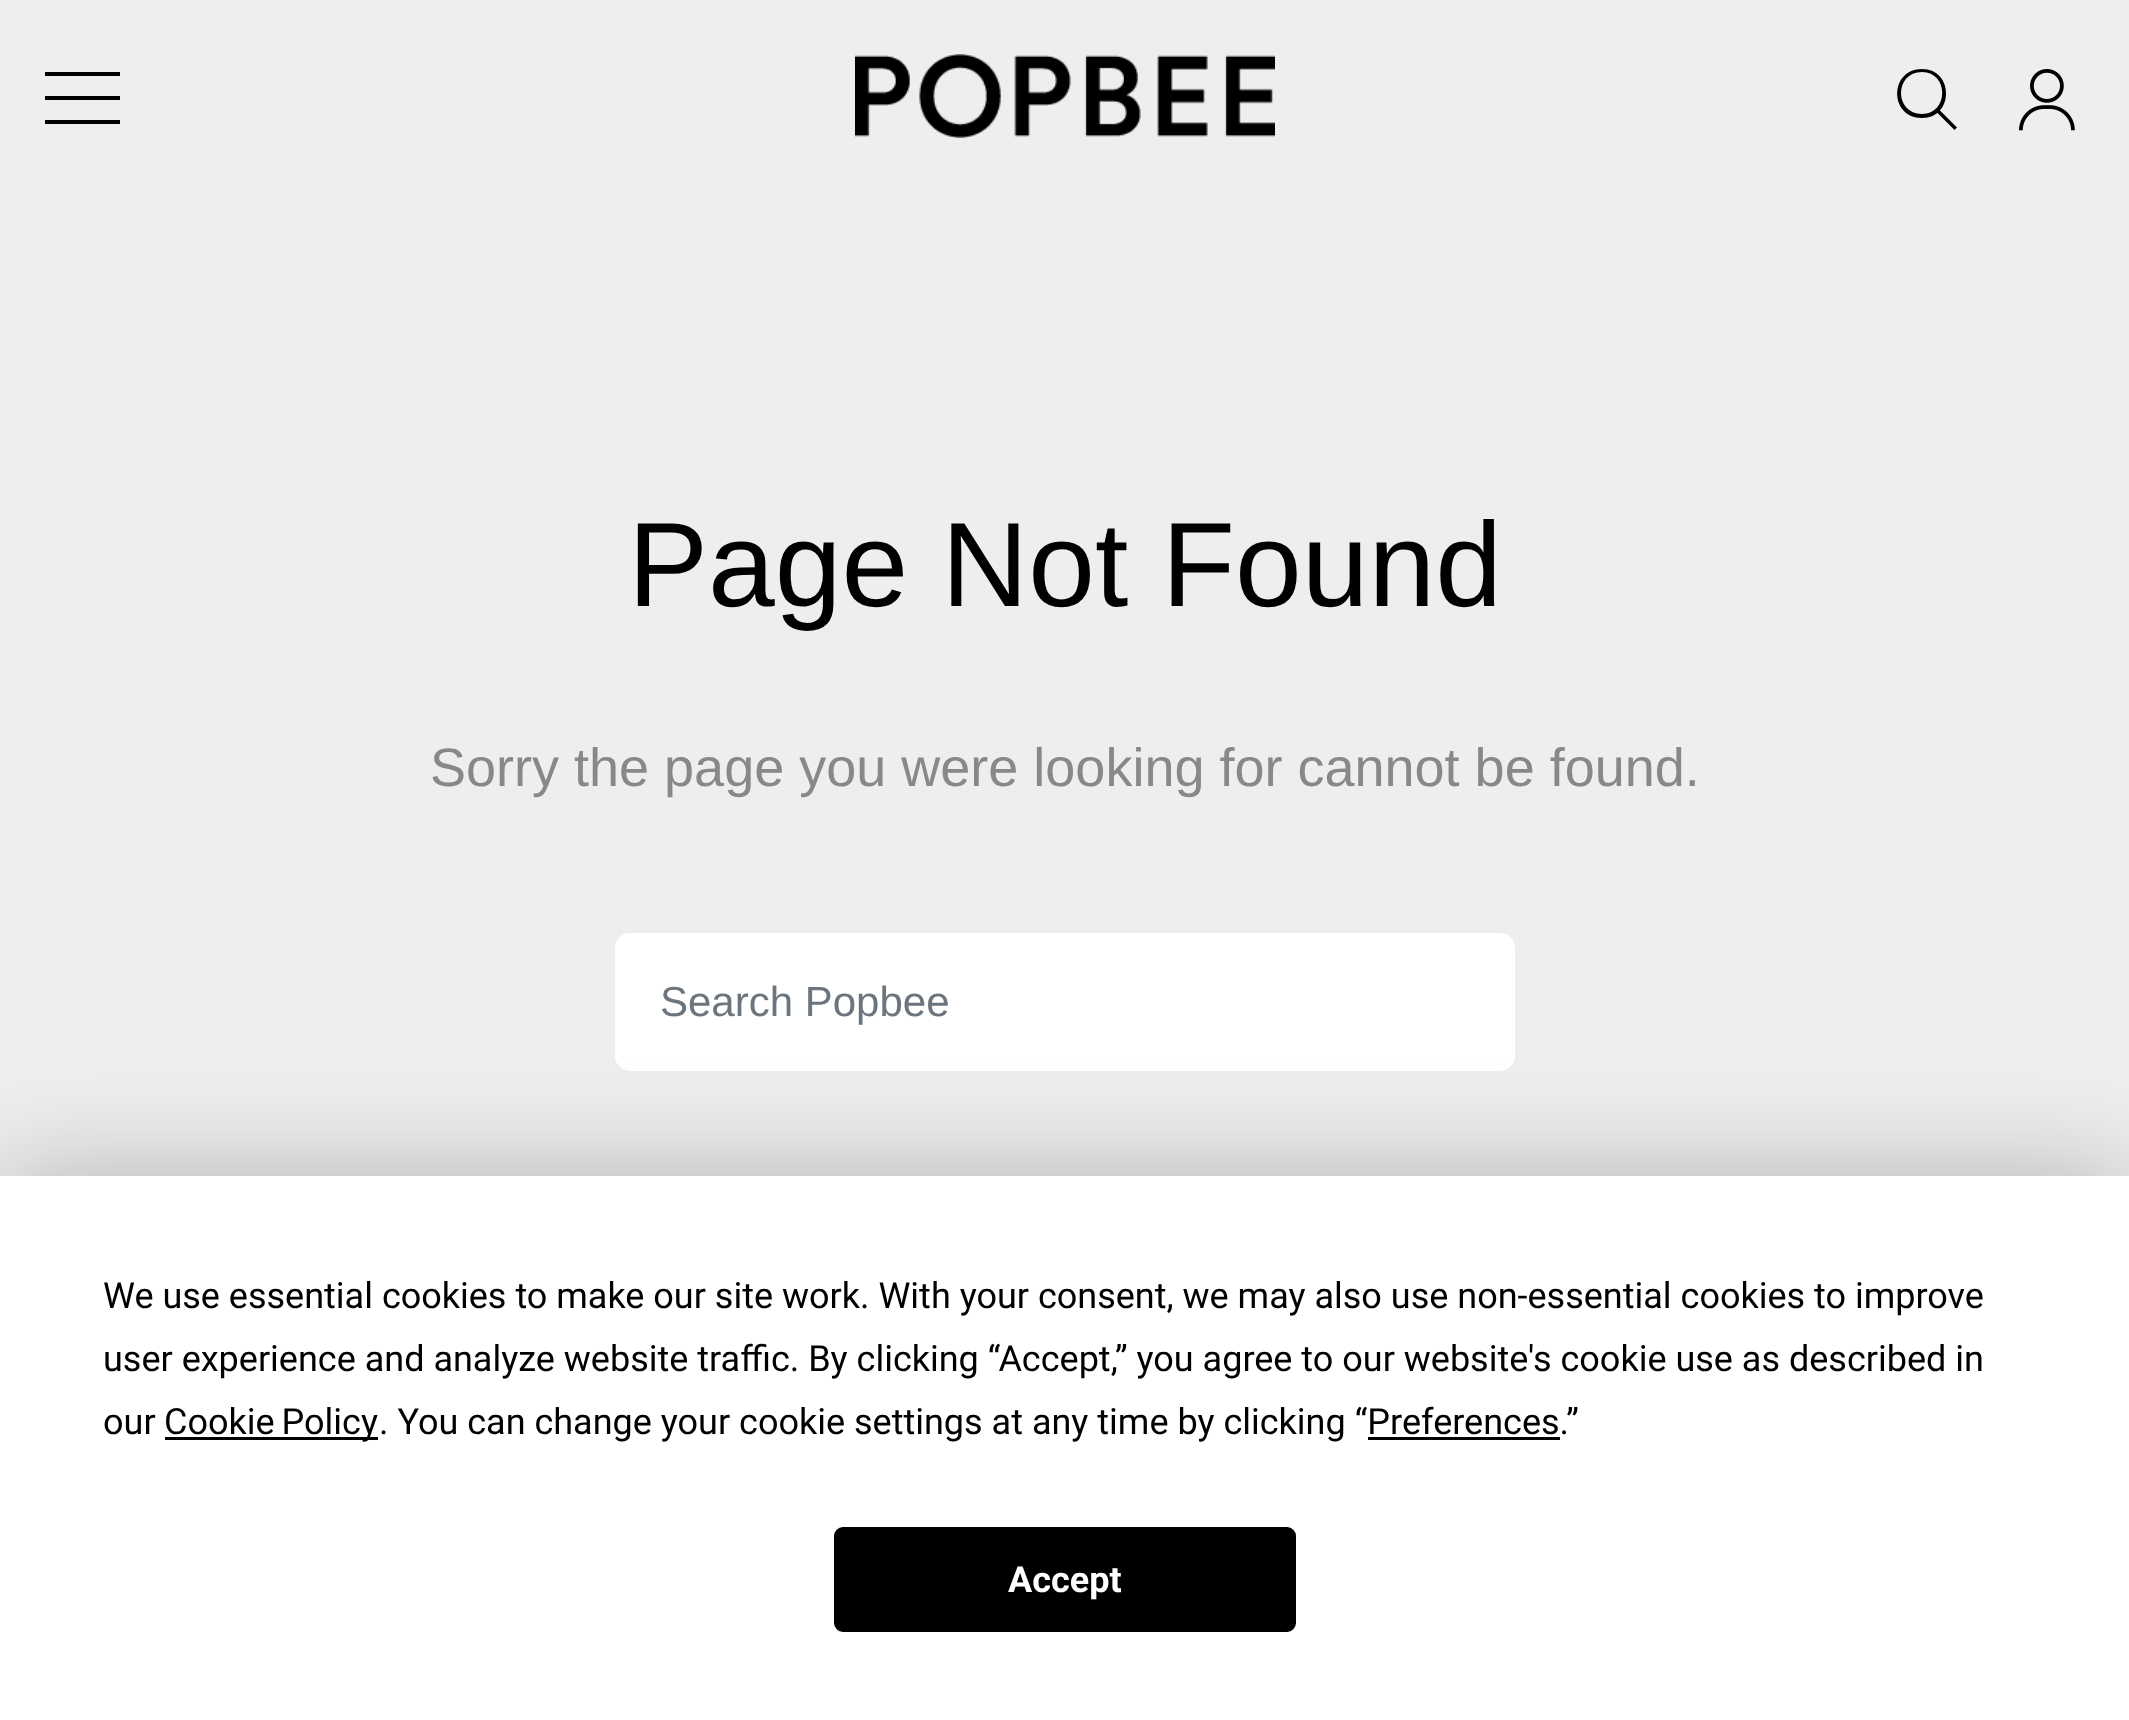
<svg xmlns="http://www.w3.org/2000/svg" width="2129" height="1720">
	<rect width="100%" height="100%" fill="#EEEEEE" />
	<rect x="45" y="72" width="75" height="4" fill="#000000" />
	<rect x="45" y="96" width="75" height="4" fill="#000000" />
	<rect x="45" y="120" width="75" height="4" fill="#000000" />
	<image x="855" y="54" width="420" height="84" href="assets/img1.png" />
	<path d="M1922 114C1949 114 1949 72 1922 72C1894 72 1894 114 1922 114ZM1922 118C1954 118 1954 69 1922 69C1889 69 1889 118 1922 118Z" fill="#000000" fill-rule="evenodd" />
	<path d="M1954.5 130L1936 111.5L1938.5 109L1957 127.5Z" fill="#000000" fill-rule="evenodd" />
	<image x="2019" y="69" width="56" height="62" href="assets/img2.png" />
	<text x="628" y="606" font-family="Liberation Sans" font-size="120" fill="#000000">Page Not Found</text>
	<text x="430" y="786" font-family="Liberation Sans" font-size="54" fill="#888888">Sorry the page you were looking for cannot be found.</text>
	<rect x="615" y="933" width="900" height="138" rx="15" fill="#FFFFFF" />
	<text x="660" y="1016" font-family="Liberation Sans" font-size="42" fill="#6C757D">Search Popbee</text>
	<rect x="0" y="1176" width="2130" height="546" fill="#000000" fill-opacity="0.25" filter="blur(52.5px)" />
	<rect x="0" y="1176" width="2129" height="544" fill="#FFFFFF" />
	<g font-family="Roboto" font-size="36" fill="#000000">
		<text x="103" y="1308">We use essential cookies to make our site work. With your consent, we may also use non-essential cookies to improve</text>
		<text x="103" y="1371">user experience and analyze website traffic. By clicking “Accept,” you agree to our website's cookie use as described in</text>
		<text x="103" y="1434">our</text>
	</g>
	<rect x="165" y="1437" width="213" height="3" fill="#000000" />
	<g font-family="Roboto" font-size="36" fill="#000000">
		<text x="164" y="1434" word-spacing="-2">Cookie Policy</text>
		<text x="379" y="1434">. You can change your cookie settings at any time by clicking “Preferences.”</text>
	</g>
	<rect x="1368" y="1437" width="192" height="3" fill="#000000" />
	<rect x="835.5" y="1528.5" width="459" height="102" rx="7.5" fill="#000000" stroke="#000000" stroke-width="3" />
	<text x="1008" y="1592" font-family="Roboto" font-size="36" font-weight="700" fill="#FFFFFF">Accept</text>
</svg>
